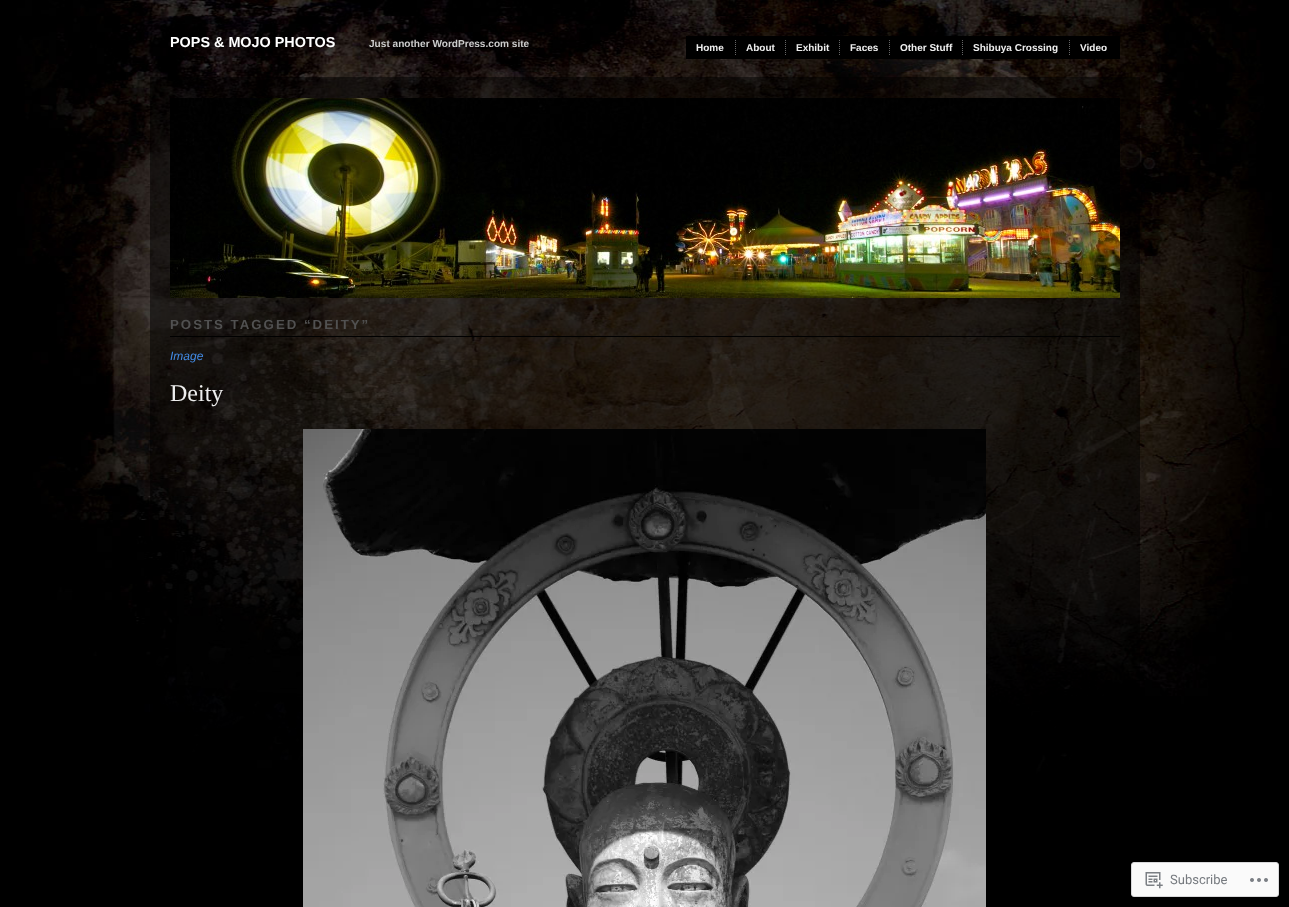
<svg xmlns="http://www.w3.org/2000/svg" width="1289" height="907">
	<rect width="100%" height="100%" fill="#FFFFFF" />
	<image x="0" y="0" width="1289" height="907" href="assets/img1.png" />
	<text x="170" y="47" font-family="Liberation Sans" font-size="14.4" font-weight="700" fill="#FFFFFF">POPS &amp; MOJO PHOTOS</text>
	<text x="369" y="47" font-family="Liberation Sans" font-size="10.1" font-weight="700" fill="#CCCCCC">Just another WordPress.com site</text>
	<rect x="686" y="36" width="434" height="23" fill="#000000" />
	<path d="M735.5 40V55" fill="none" stroke="#666666" stroke-dasharray="1 1" />
	<text x="696" y="51" font-family="Liberation Sans" font-size="10" font-weight="700" fill="#EEEEEE">Home</text>
	<path d="M785.5 40V55" fill="none" stroke="#666666" stroke-dasharray="1 1" />
	<text x="746" y="51" font-family="Liberation Sans" font-size="10" font-weight="700" fill="#EEEEEE">About</text>
	<path d="M839.5 40V55" fill="none" stroke="#666666" stroke-dasharray="1 1" />
	<text x="796" y="51" font-family="Liberation Sans" font-size="10" font-weight="700" fill="#EEEEEE">Exhibit</text>
	<path d="M889.5 40V55" fill="none" stroke="#666666" stroke-dasharray="1 1" />
	<text x="850" y="51" font-family="Liberation Sans" font-size="10" font-weight="700" fill="#EEEEEE">Faces</text>
	<path d="M962.5 40V55" fill="none" stroke="#666666" stroke-dasharray="1 1" />
	<text x="900" y="51" font-family="Liberation Sans" font-size="10" font-weight="700" fill="#EEEEEE">Other Stuff</text>
	<path d="M1069.5 40V55" fill="none" stroke="#666666" stroke-dasharray="1 1" />
	<g font-family="Liberation Sans" font-size="10" font-weight="700" fill="#EEEEEE">
		<text x="973" y="51">Shibuya Crossing</text>
		<text x="1080" y="51">Video</text>
	</g>
	<rect x="150" y="77" width="990" height="678" fill="#000000" fill-opacity="0.5" />
	<image x="170" y="98" width="950" height="200" href="assets/img2.png" />
	<rect x="170" y="336" width="950" height="1" fill="#000000" />
	<text x="170" y="329" font-family="Liberation Sans" font-size="13.25" font-weight="700" letter-spacing="2" fill="#515151">POSTS TAGGED “DEITY”</text>
	<text x="170" y="360" font-family="Liberation Sans" font-size="12" font-style="italic" fill="#428CE7">Image</text>
	<text x="170" y="401" font-family="Liberation Serif" font-size="24" fill="#EEEEEE">Deity</text>
	<image x="303" y="429" width="683" height="478" href="assets/img3.png" />
	<rect x="1131.5" y="862.5" width="147" height="34" rx="2.5" fill="#FAFAFA" stroke="#D8D8DA" />
	<image x="1145" y="872" width="18" height="17" href="assets/img4.png" />
	<text x="1170" y="884" font-family="Roboto" font-size="13" fill="#767A7F">Subscribe</text>
	<image x="1250" y="878" width="18" height="4" href="assets/img5.png" />
</svg>
